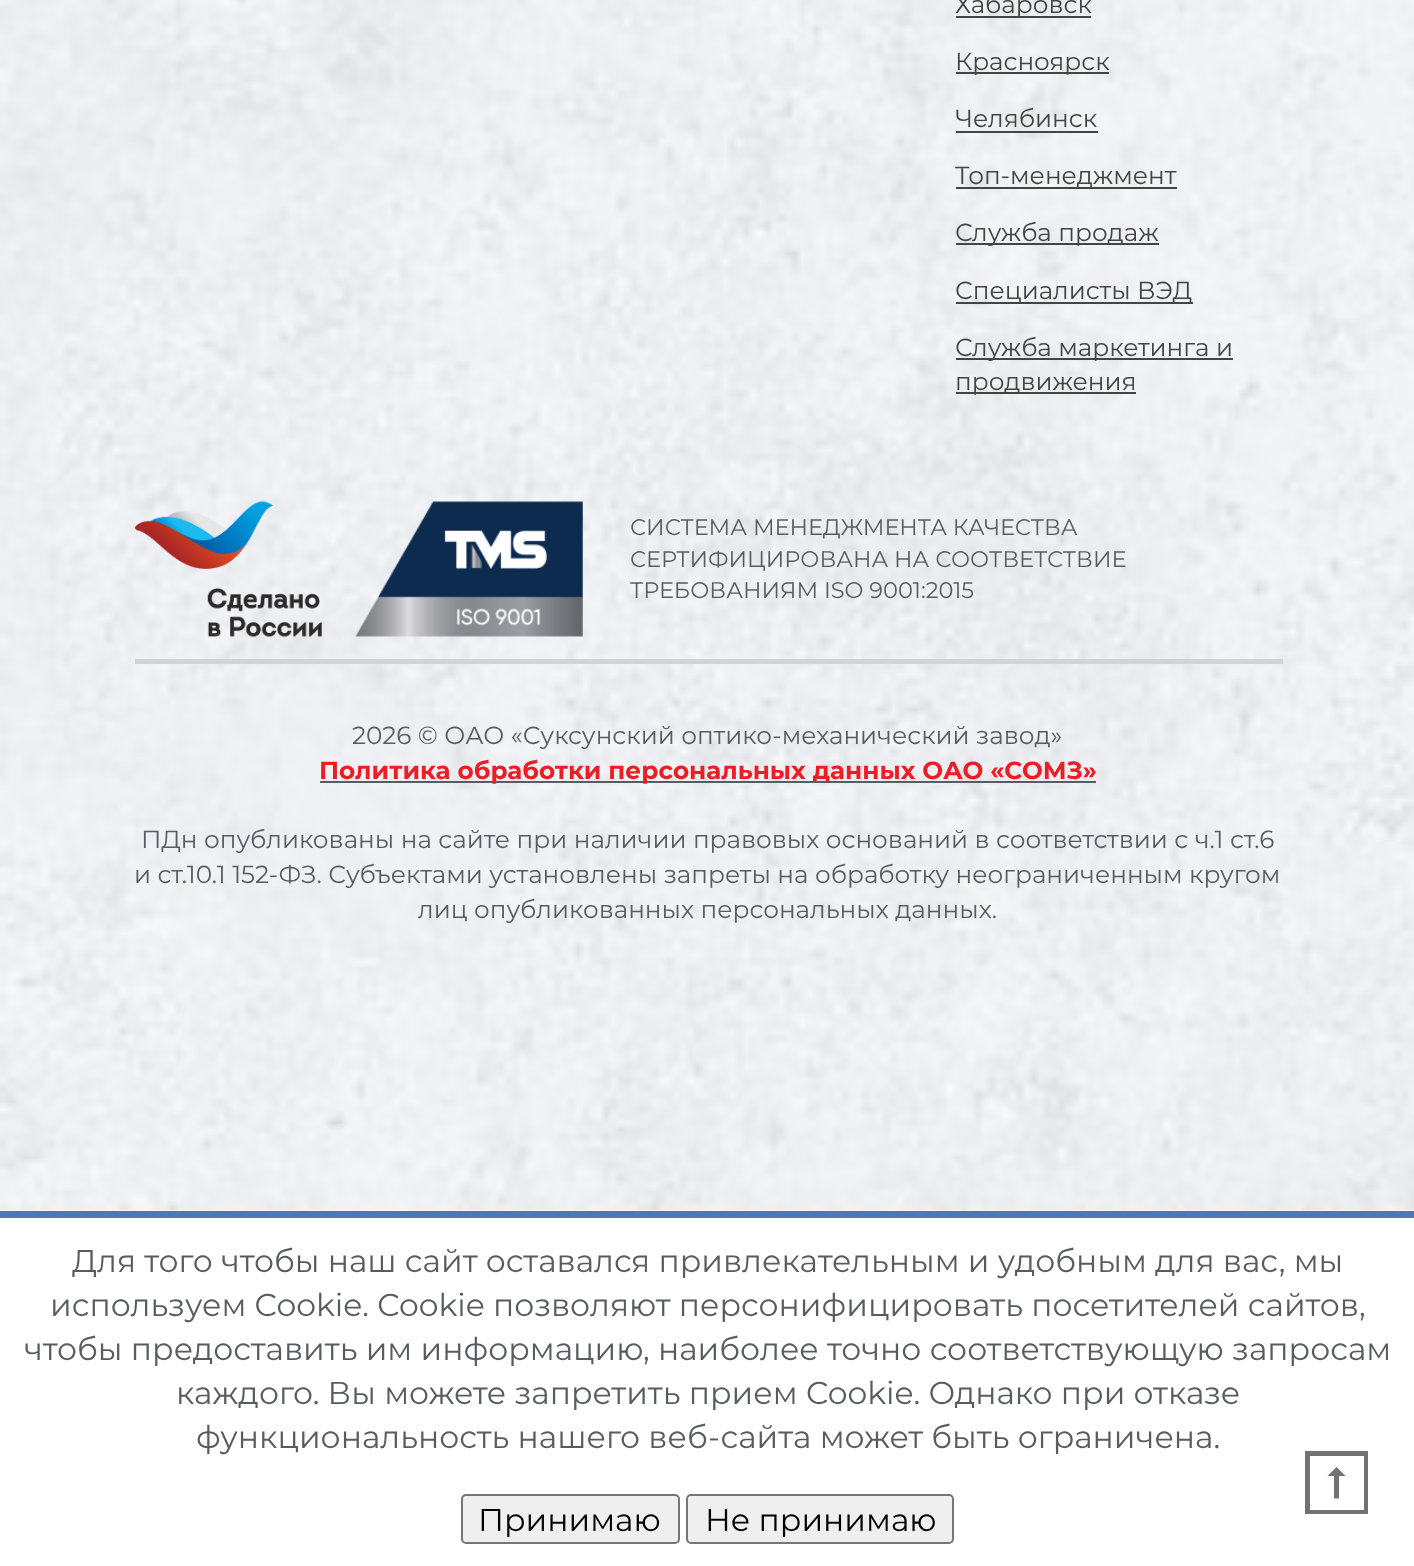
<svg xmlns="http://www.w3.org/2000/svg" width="1414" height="1566">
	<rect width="100%" height="100%" fill="#FFFFFF" />
	<image x="0" y="0" width="1414" height="1211" href="assets/img1.png" />
	<rect x="0" y="1211" width="1414" height="7" fill="#4978BC" />
	<rect x="956" y="16" width="135" height="2" fill="#444444" />
	<text x="955" y="13" font-family="Montserrat" font-size="24.75" fill="#444444">Хабаровск</text>
	<rect x="956" y="72" width="153" height="2" fill="#444444" />
	<g font-family="Montserrat" font-size="24.75" fill="#444444">
		<text x="955" y="70">Красноярск</text>
		<text x="955" y="127">Челябинск</text>
	</g>
	<rect x="956" y="131" width="142" height="2" fill="#444444" />
	<rect x="956" y="187" width="221" height="2" fill="#444444" />
	<text x="955" y="184" font-family="Montserrat" font-size="24.75" fill="#444444">Топ-менеджмент</text>
	<rect x="956" y="243" width="203" height="2" fill="#444444" />
	<text x="955" y="241" font-family="Montserrat" font-size="24.75" fill="#444444">Служба продаж</text>
	<rect x="956" y="302" width="237" height="2" fill="#444444" />
	<text x="955" y="299" font-family="Montserrat" font-size="24.75" fill="#444444">Специалисты ВЭД</text>
	<rect x="956" y="358" width="277" height="2" fill="#444444" />
	<text x="955" y="356" font-family="Montserrat" font-size="24.75" fill="#444444">Служба маркетинга и</text>
	<rect x="956" y="392" width="180" height="2" fill="#444444" />
	<text x="955" y="390" font-family="Montserrat" font-size="24.75" fill="#444444">продвижения</text>
	<image x="135" y="501" width="187" height="136" href="assets/img2.png" />
	<image x="355" y="501" width="228" height="136" href="assets/img3.png" />
	<g font-family="Montserrat" font-size="22.5" fill="#585C61">
		<text x="630" y="535">СИСТЕМА МЕНЕДЖМЕНТА КАЧЕСТВА</text>
		<text x="630" y="567">СЕРТИФИЦИРОВАНА НА СООТВЕТСТВИЕ</text>
		<text x="630" y="598">ТРЕБОВАНИЯМ ISO 9001:2015</text>
	</g>
	<rect x="135" y="659" width="1148" height="5" fill="#CFD3DA" />
	<text x="352" y="744" font-family="Montserrat" font-size="24.75" fill="#585C61">2026 © ОАО «Суксунский оптико-механический завод»</text>
	<rect x="320" y="781" width="776" height="2" fill="#585C61" />
	<text x="319" y="779" font-family="Montserrat" font-size="24.75" font-weight="700" fill="#EE1D24">Политика обработки персональных данных ОАО «СОМЗ»</text>
	<g font-family="Montserrat" font-size="24.75" fill="#585C61">
		<text x="141" y="848">ПДн опубликованы на сайте при наличии правовых оснований в соответствии с ч.1 ст.6</text>
		<text x="134" y="883">и ст.10.1 152-ФЗ. Субъектами установлены запреты на обработку неограниченным кругом</text>
		<text x="418" y="918">лиц опубликованных персональных данных.</text>
	</g>
	<g font-family="Montserrat" font-size="31.5" fill="#585C61">
		<text x="72" y="1272">Для того чтобы наш сайт оставался привлекательным и удобным для вас, мы</text>
		<text x="50" y="1316">используем Cookie. Cookie позволяют персонифицировать посетителей сайтов,</text>
		<text x="24" y="1360">чтобы предоставить им информацию, наиболее точно соответствующую запросам</text>
		<text x="176" y="1404">каждого. Вы можете запретить прием Cookie. Однако при отказе</text>
		<text x="196" y="1448">функциональность нашего веб-сайта может быть ограничена.</text>
	</g>
	<rect x="462" y="1495" width="217" height="48" rx="4" fill="#EFEFEF" stroke="#767676" stroke-width="2" />
	<text x="478" y="1531" font-family="Montserrat" font-size="31.5" fill="#000000">Принимаю</text>
	<rect x="687" y="1495" width="266" height="48" rx="4" fill="#EFEFEF" stroke="#767676" stroke-width="2" />
	<text x="705" y="1531" font-family="Montserrat" font-size="31.5" fill="#000000">Не принимаю</text>
	<path d="M1364 1456V1510H1310V1456H1364M1368 1451H1305V1514H1368Z" fill="#727272" />
	<path d="M1345.5 1476L1336.5 1467L1327.5 1476H1334V1498.5H1339V1476Z" fill="#727272" fill-rule="evenodd" />
</svg>
